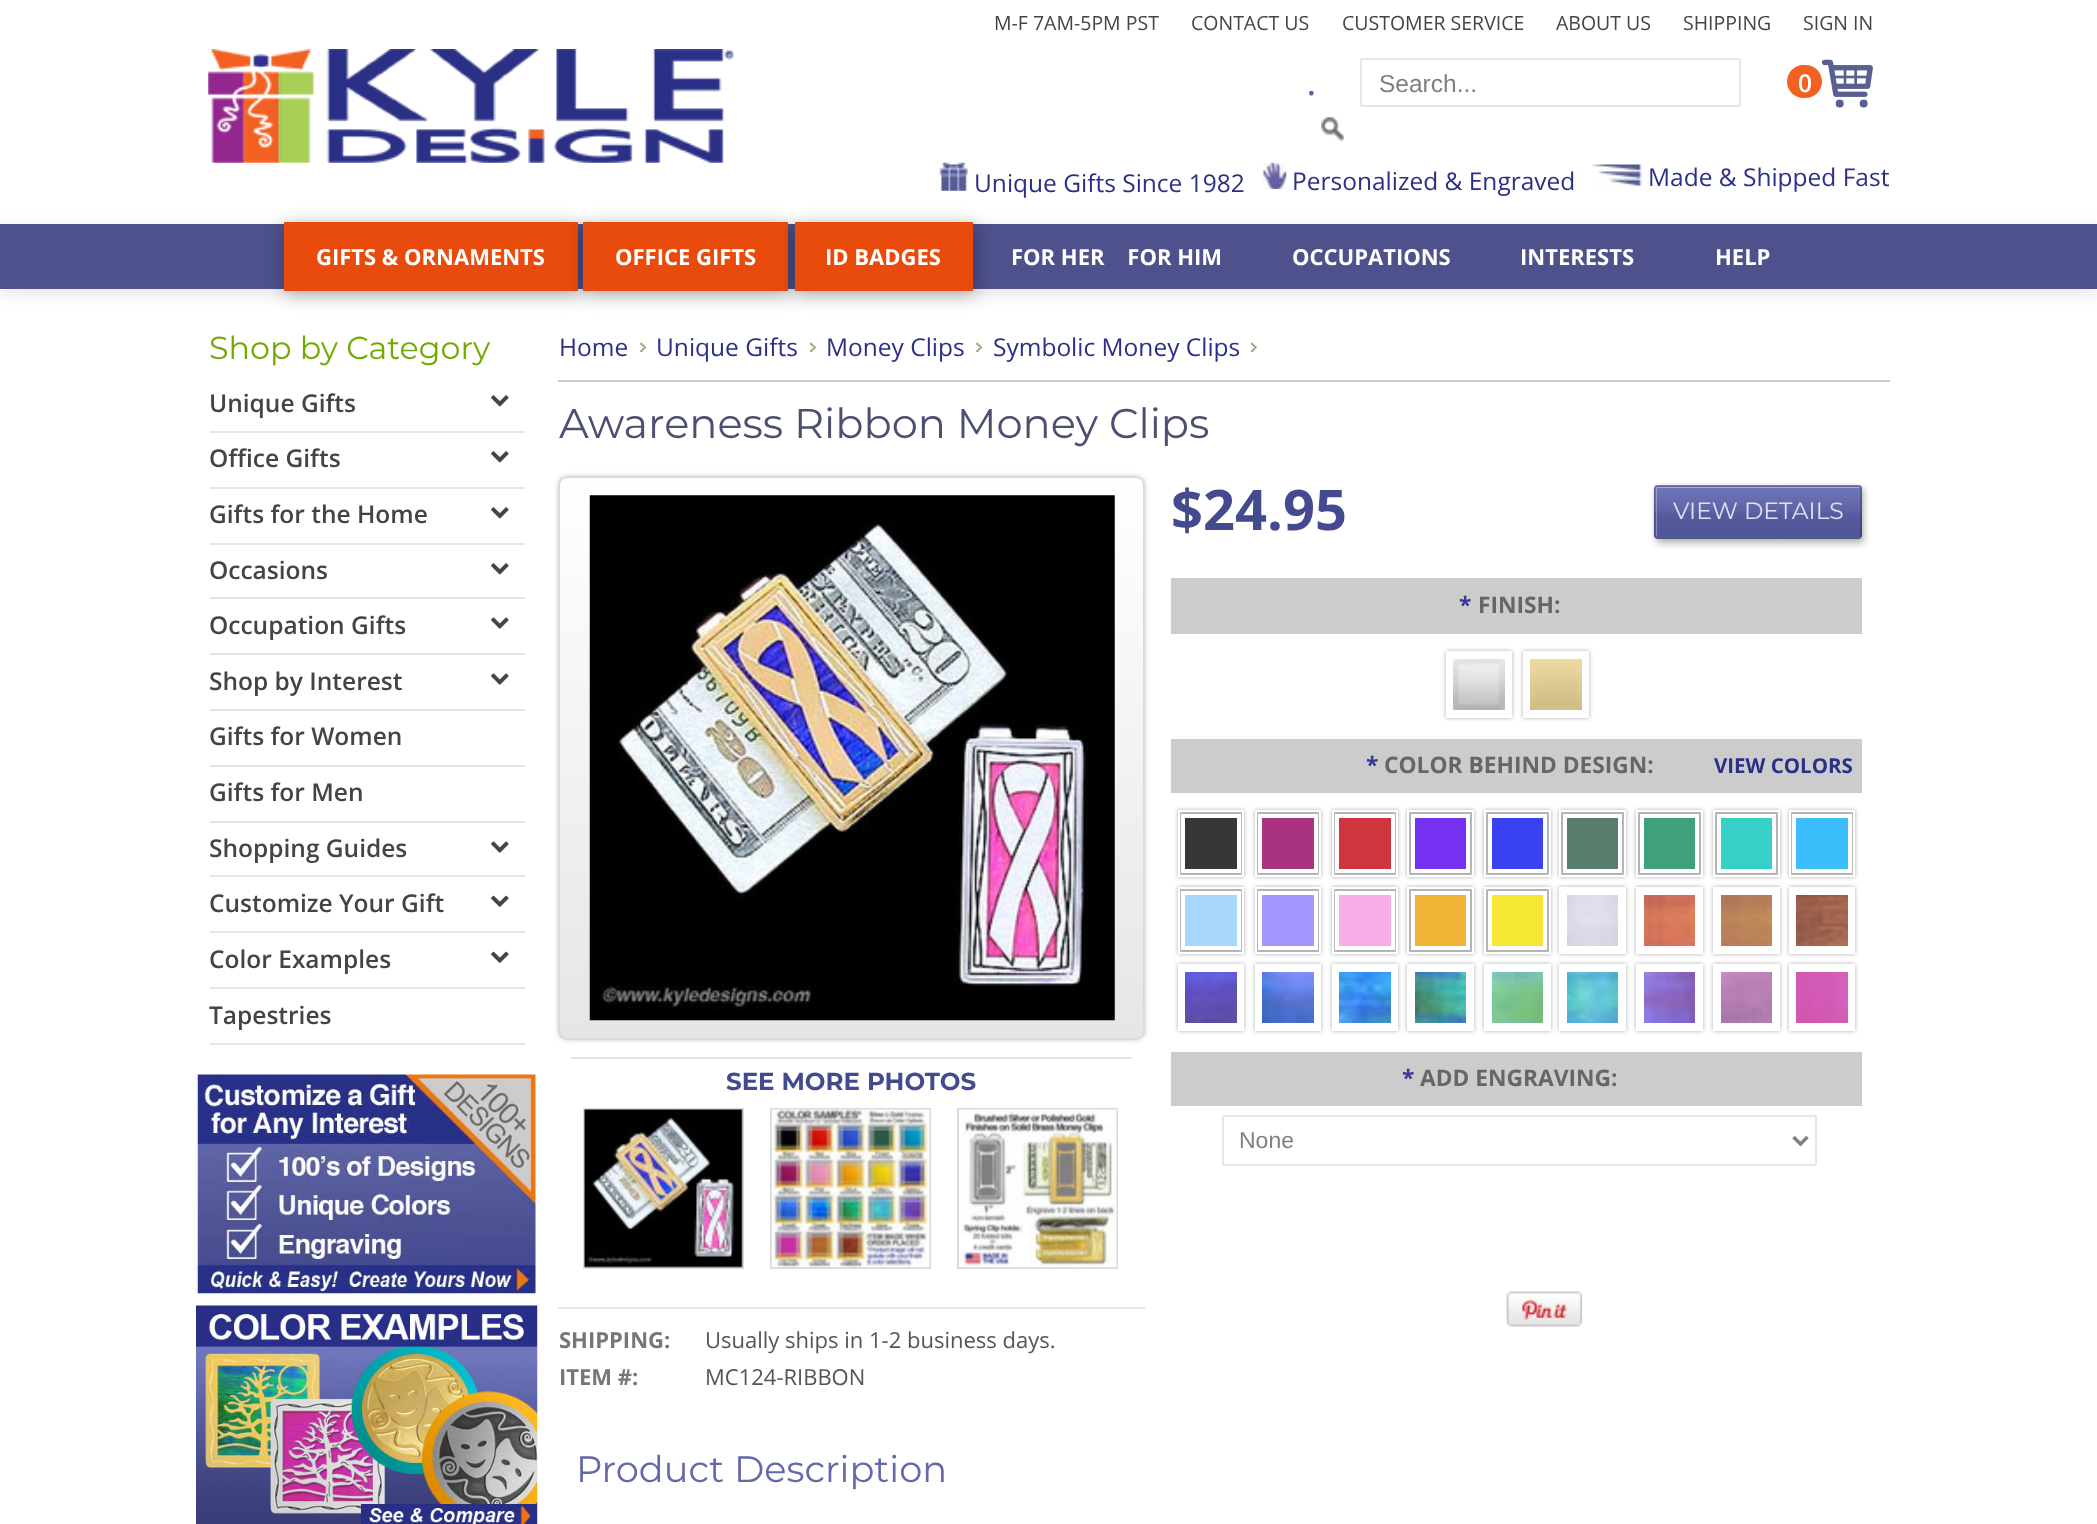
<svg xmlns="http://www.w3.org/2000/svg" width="2097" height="1524">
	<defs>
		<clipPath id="clip1"><rect x="1654" y="485" width="208" height="54" rx="4" /></clipPath>
		<linearGradient id="g1" gradientUnits="userSpaceOnUse" x1="1758" y1="436" x2="1758" y2="487"><stop offset="0" stop-color="#8991C6" /><stop offset="0.03" stop-color="#6E75B7" /><stop offset="0.5" stop-color="#5D63A6" /><stop offset="0.52" stop-color="#565CA0" /><stop offset="1" stop-color="#4F5696" /></linearGradient>
		<linearGradient id="g2" gradientUnits="userSpaceOnUse" x1="1758" y1="487" x2="1758" y2="537"><stop offset="0" stop-color="#8991C6" /><stop offset="0.03" stop-color="#6E75B7" /><stop offset="0.5" stop-color="#5D63A6" /><stop offset="0.52" stop-color="#565CA0" /><stop offset="1" stop-color="#4F5696" /></linearGradient>
		<linearGradient id="g3" gradientUnits="userSpaceOnUse" x1="1758" y1="537" x2="1758" y2="588"><stop offset="0" stop-color="#8991C6" /><stop offset="0.03" stop-color="#6E75B7" /><stop offset="0.5" stop-color="#5D63A6" /><stop offset="0.52" stop-color="#565CA0" /><stop offset="1" stop-color="#4F5696" /></linearGradient>
		<clipPath id="clip2"><path d="M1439 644H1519V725H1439ZM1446 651H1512V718H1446Z" clip-rule="evenodd" /></clipPath>
		<clipPath id="clip3"><path d="M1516 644H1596V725H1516ZM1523 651H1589V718H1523Z" clip-rule="evenodd" /></clipPath>
		<clipPath id="clip4"><path d="M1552 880H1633V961H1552ZM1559 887H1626V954H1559Z" clip-rule="evenodd" /></clipPath>
		<clipPath id="clip5"><path d="M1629 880H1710V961H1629ZM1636 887H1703V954H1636Z" clip-rule="evenodd" /></clipPath>
		<clipPath id="clip6"><path d="M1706 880H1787V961H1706ZM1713 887H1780V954H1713Z" clip-rule="evenodd" /></clipPath>
		<clipPath id="clip7"><path d="M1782 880H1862V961H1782ZM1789 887H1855V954H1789Z" clip-rule="evenodd" /></clipPath>
		<clipPath id="clip8"><path d="M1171 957H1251V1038H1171ZM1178 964H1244V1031H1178Z" clip-rule="evenodd" /></clipPath>
		<clipPath id="clip9"><path d="M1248 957H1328V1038H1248ZM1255 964H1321V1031H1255Z" clip-rule="evenodd" /></clipPath>
		<clipPath id="clip10"><path d="M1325 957H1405V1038H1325ZM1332 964H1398V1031H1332Z" clip-rule="evenodd" /></clipPath>
		<clipPath id="clip11"><path d="M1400 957H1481V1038H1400ZM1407 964H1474V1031H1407Z" clip-rule="evenodd" /></clipPath>
		<clipPath id="clip12"><path d="M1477 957H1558V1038H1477ZM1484 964H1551V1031H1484Z" clip-rule="evenodd" /></clipPath>
		<clipPath id="clip13"><path d="M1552 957H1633V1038H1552ZM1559 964H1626V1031H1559Z" clip-rule="evenodd" /></clipPath>
		<clipPath id="clip14"><path d="M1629 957H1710V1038H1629ZM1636 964H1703V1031H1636Z" clip-rule="evenodd" /></clipPath>
		<clipPath id="clip15"><path d="M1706 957H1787V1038H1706ZM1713 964H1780V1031H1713Z" clip-rule="evenodd" /></clipPath>
		<clipPath id="clip16"><path d="M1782 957H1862V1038H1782ZM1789 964H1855V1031H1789Z" clip-rule="evenodd" /></clipPath>
		<clipPath id="clip17"><rect x="558" y="476" width="587" height="564" rx="9" /></clipPath>
		<linearGradient id="g4" gradientUnits="userSpaceOnUse" x1="851" y1="478" x2="851" y2="1038"><stop offset="0" stop-color="#FFFFFF" stop-opacity="0.1" /><stop offset="1" stop-color="#000000" stop-opacity="0.1" /></linearGradient>
	</defs>
	<rect width="100%" height="100%" fill="#FFFFFF" />
	<g font-family="Open Sans" font-size="19.5" fill="#444444">
		<text x="994" y="30">M-F 7AM-5PM PST</text>
		<text x="1191" y="30">CONTACT US</text>
		<text x="1342" y="30">CUSTOMER SERVICE</text>
		<text x="1556" y="30">ABOUT US</text>
		<text x="1683" y="30">SHIPPING</text>
		<text x="1803" y="30">SIGN IN</text>
	</g>
	<image x="208" y="49" width="526" height="114" href="assets/img1.png" />
	<text x="1307" y="95" font-family="Open Sans" font-size="31.75" font-weight="600" fill="#5D64A1">.</text>
	<rect x="1361" y="59" width="379" height="47" rx="1" fill="none" stroke="#E6E6E6" stroke-width="2" />
	<text x="1379" y="92" font-family="Liberation Sans" font-size="24.5" fill="#808080">Search...</text>
	<image x="1321" y="117" width="23" height="25" href="assets/img2.png" />
	<rect x="1787" y="65" width="35" height="33" rx="16.5" fill="#F26122" />
	<text x="1798" y="92" font-family="Open Sans" font-size="24.5" font-weight="600" fill="#FFFFFF">0</text>
	<image x="1821" y="59" width="52" height="49" href="assets/img3.png" />
	<image x="939" y="162" width="29" height="29" href="assets/img4.png" />
	<text x="974" y="192" font-family="Open Sans" font-size="24.5" fill="#2B3087">Unique Gifts Since 1982</text>
	<image x="1263" y="162" width="24" height="27" href="assets/img5.png" />
	<text x="1292" y="190" font-family="Open Sans" font-size="24.5" fill="#2B3087">Personalized &amp; Engraved</text>
	<image x="1592" y="164" width="50" height="22" href="assets/img6.png" />
	<text x="1648" y="186" font-family="Open Sans" font-size="24.5" fill="#2B3087">Made &amp; Shipped Fast</text>
	<rect x="0" y="229" width="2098" height="65" fill="#000000" fill-opacity="0.1" filter="blur(9px)" />
	<rect x="0" y="224" width="2097" height="65" fill="#4E518B" />
	<rect x="285" y="226" width="294" height="68" fill="#000000" fill-opacity="0.3" filter="blur(9px)" />
	<rect x="284" y="222" width="294" height="69" fill="#E94B0D" />
	<text x="316" y="265" font-family="Open Sans" font-size="22" font-weight="700" fill="#FFFFFF">GIFTS &amp; ORNAMENTS</text>
	<rect x="585" y="226" width="204" height="68" fill="#000000" fill-opacity="0.3" filter="blur(9px)" />
	<rect x="583" y="222" width="205" height="69" fill="#E94B0D" />
	<text x="615" y="265" font-family="Open Sans" font-size="22" font-weight="700" fill="#FFFFFF">OFFICE GIFTS</text>
	<rect x="796" y="226" width="179" height="68" fill="#000000" fill-opacity="0.3" filter="blur(9px)" />
	<rect x="795" y="222" width="178" height="69" fill="#E94B0D" />
	<g font-family="Open Sans" font-size="22" font-weight="700" fill="#FFFFFF">
		<text x="825" y="265">ID BADGES</text>
		<text x="1011" y="265" xml:space="preserve">FOR HER    FOR HIM</text>
		<text x="1292" y="265">OCCUPATIONS</text>
		<text x="1520" y="265">INTERESTS</text>
		<text x="1715" y="265">HELP</text>
	</g>
	<text x="209" y="359" font-family="Montserrat" font-size="31.75" fill="#71AA02">Shop by Category</text>
	<rect x="210" y="431" width="315" height="2" fill="#E6E6E6" />
	<text x="209" y="412" font-family="Open Sans" font-size="24.5" font-weight="600" fill="#444444">Unique Gifts</text>
	<image x="491" y="395" width="18" height="12" href="assets/img7.png" />
	<rect x="210" y="487" width="315" height="2" fill="#E6E6E6" />
	<text x="209" y="467" font-family="Open Sans" font-size="24.5" font-weight="600" fill="#444444">Office Gifts</text>
	<image x="491" y="451" width="18" height="12" href="assets/img7.png" />
	<rect x="210" y="543" width="315" height="2" fill="#E6E6E6" />
	<text x="209" y="523" font-family="Open Sans" font-size="24.5" font-weight="600" fill="#444444">Gifts for the Home</text>
	<image x="491" y="507" width="18" height="12" href="assets/img7.png" />
	<rect x="210" y="597" width="315" height="2" fill="#E6E6E6" />
	<text x="209" y="579" font-family="Open Sans" font-size="24.5" font-weight="600" fill="#444444">Occasions</text>
	<image x="491" y="563" width="18" height="12" href="assets/img7.png" />
	<rect x="210" y="653" width="315" height="2" fill="#E6E6E6" />
	<text x="209" y="634" font-family="Open Sans" font-size="24.5" font-weight="600" fill="#444444">Occupation Gifts</text>
	<image x="491" y="617" width="18" height="12" href="assets/img8.png" />
	<rect x="210" y="709" width="315" height="2" fill="#E6E6E6" />
	<text x="209" y="690" font-family="Open Sans" font-size="24.5" font-weight="600" fill="#444444">Shop by Interest</text>
	<image x="491" y="673" width="18" height="12" href="assets/img8.png" />
	<rect x="210" y="765" width="315" height="2" fill="#E6E6E6" />
	<text x="209" y="745" font-family="Open Sans" font-size="24.5" font-weight="600" fill="#444444">Gifts for Women</text>
	<rect x="210" y="821" width="315" height="2" fill="#E6E6E6" />
	<text x="209" y="801" font-family="Open Sans" font-size="24.5" font-weight="600" fill="#444444">Gifts for Men</text>
	<rect x="210" y="875" width="315" height="2" fill="#E6E6E6" />
	<text x="209" y="857" font-family="Open Sans" font-size="24.5" font-weight="600" fill="#444444">Shopping Guides</text>
	<image x="491" y="841" width="18" height="12" href="assets/img8.png" />
	<rect x="210" y="931" width="315" height="2" fill="#E6E6E6" />
	<text x="209" y="912" font-family="Open Sans" font-size="24.5" font-weight="600" fill="#444444">Customize Your Gift</text>
	<image x="491" y="895" width="18" height="12" href="assets/img9.png" />
	<rect x="210" y="987" width="315" height="2" fill="#E6E6E6" />
	<text x="209" y="968" font-family="Open Sans" font-size="24.5" font-weight="600" fill="#444444">Color Examples</text>
	<image x="491" y="951" width="18" height="12" href="assets/img9.png" />
	<rect x="210" y="1043" width="315" height="2" fill="#E6E6E6" />
	<text x="209" y="1024" font-family="Open Sans" font-size="24.5" font-weight="600" fill="#444444">Tapestries</text>
	<image x="197" y="1074" width="339" height="220" href="assets/img10.png" />
	<image x="196" y="1305" width="342" height="219" href="assets/img11.png" />
	<rect x="558" y="380" width="1332" height="2" fill="#CCCCCC" />
	<text x="559" y="356" font-family="Open Sans" font-size="24.5" fill="#2B3087">Home</text>
	<image x="640" y="342" width="6" height="10" href="assets/img12.png" />
	<text x="656" y="356" font-family="Open Sans" font-size="24.5" fill="#2B3087">Unique Gifts</text>
	<image x="810" y="342" width="6" height="10" href="assets/img13.png" />
	<text x="826" y="356" font-family="Open Sans" font-size="24.5" fill="#2B3087">Money Clips</text>
	<image x="976" y="342" width="6" height="10" href="assets/img12.png" />
	<text x="993" y="356" font-family="Open Sans" font-size="24.5" fill="#2B3087">Symbolic Money Clips</text>
	<image x="1251" y="342" width="6" height="10" href="assets/img13.png" />
	<text x="559" y="438" font-family="Montserrat" font-size="41.6" fill="#4D4F70">Awareness Ribbon Money Clips</text>
	<text x="1171" y="530" font-family="Open Sans" font-size="56" font-weight="700" fill="#444A8F">$24.95</text>
	<rect x="1656" y="488" width="208" height="55" rx="4" fill="#000000" fill-opacity="0.3" filter="blur(3.5px)" />
	<g clip-path="url(#clip1)">
		<rect x="1654" y="485" width="208" height="2" fill="url(#g1)" />
		<rect x="1654" y="487" width="208" height="50" fill="url(#g2)" />
		<rect x="1654" y="537" width="208" height="2" fill="url(#g3)" />
	</g>
	<path d="M1659 488H1860C1859 487 1859 487 1858 487H1658C1657 487 1656 488 1656 489V535C1656 536 1656 536 1657 537V490C1657 489 1658 488 1659 488Z" fill="#FFFFFF" fill-opacity="0.3" />
	<path d="M1655.5 486.5L1657 485.5H1858.5L1860.5 486.5" fill="none" stroke="#FFFFFF" stroke-opacity="0.2" stroke-width="1.8" />
	<path d="M1860.5 486.5L1861 488V536L1860.5 537.5" fill="none" stroke="#000000" stroke-opacity="0.2" stroke-width="1.8" />
	<path d="M1860.5 537.5L1858.5 538H1657L1655.5 537.5" fill="none" stroke="#000000" stroke-opacity="0.3" stroke-width="1.8" />
	<path d="M1655.5 537.5L1654.5 536V488L1655.5 486.5" fill="none" stroke="#000000" stroke-opacity="0.1" stroke-width="1.8" />
	<text x="1673" y="519" font-family="Montserrat" font-size="23.5" fill="#DEE0ED">VIEW DETAILS</text>
	<rect x="1171" y="578" width="691" height="56" fill="#CCCCCC" />
	<text x="1459" y="613" font-family="Open Sans" font-size="22.75" font-weight="700" fill="#363895">*</text>
	<text x="1478" y="613" font-family="Open Sans" font-size="22.75" font-weight="700" fill="#666666">FINISH:</text>
	<g clip-path="url(#clip2)">
		<rect x="1446" y="651" width="66" height="67" fill="#333333" fill-opacity="0.4" filter="blur(2px)" />
	</g>
	<rect x="1447" y="652" width="64" height="65" fill="none" stroke="#FFFFFF" stroke-width="2" />
	<image x="1453" y="659" width="52" height="51" href="assets/img14.png" />
	<g clip-path="url(#clip3)">
		<rect x="1523" y="651" width="66" height="67" fill="#333333" fill-opacity="0.4" filter="blur(2px)" />
	</g>
	<rect x="1524" y="652" width="64" height="65" fill="none" stroke="#FFFFFF" stroke-width="2" />
	<image x="1530" y="659" width="52" height="51" href="assets/img15.png" />
	<rect x="1171" y="739" width="691" height="54" fill="#CCCCCC" />
	<text x="1366" y="773" font-family="Open Sans" font-size="22.75" font-weight="700" fill="#363895">*</text>
	<text x="1384" y="773" font-family="Open Sans" font-size="22.75" font-weight="700" fill="#666666">COLOR BEHIND DESIGN:</text>
	<text x="1714" y="773" font-family="Open Sans" font-size="20.5" font-weight="700" fill="#2B3087">VIEW COLORS</text>
	<rect x="1178" y="810" width="66" height="67" fill="#333333" fill-opacity="0.4" filter="blur(2px)" />
	<rect x="1179" y="811" width="64" height="65" fill="none" stroke="#FFFFFF" stroke-width="2" />
	<rect x="1183" y="816" width="56" height="55" fill="#373737" stroke="#FFFFFF" stroke-width="4" />
	<rect x="1255" y="810" width="66" height="67" fill="#333333" fill-opacity="0.4" filter="blur(2px)" />
	<rect x="1256" y="811" width="64" height="65" fill="none" stroke="#FFFFFF" stroke-width="2" />
	<rect x="1260" y="816" width="56" height="55" fill="#A93380" stroke="#FFFFFF" stroke-width="4" />
	<rect x="1332" y="810" width="66" height="67" fill="#333333" fill-opacity="0.4" filter="blur(2px)" />
	<rect x="1333" y="811" width="64" height="65" fill="none" stroke="#FFFFFF" stroke-width="2" />
	<rect x="1337" y="816" width="56" height="55" fill="#D0353D" stroke="#FFFFFF" stroke-width="4" />
	<rect x="1407" y="810" width="67" height="67" fill="#333333" fill-opacity="0.4" filter="blur(2px)" />
	<rect x="1408" y="811" width="65" height="65" fill="none" stroke="#FFFFFF" stroke-width="2" />
	<rect x="1413" y="816" width="55" height="55" fill="#7633F3" stroke="#FFFFFF" stroke-width="4" />
	<rect x="1484" y="810" width="67" height="67" fill="#333333" fill-opacity="0.4" filter="blur(2px)" />
	<rect x="1485" y="811" width="65" height="65" fill="none" stroke="#FFFFFF" stroke-width="2" />
	<rect x="1490" y="816" width="55" height="55" fill="#3942F3" stroke="#FFFFFF" stroke-width="4" />
	<rect x="1559" y="810" width="67" height="67" fill="#333333" fill-opacity="0.4" filter="blur(2px)" />
	<rect x="1560" y="811" width="65" height="65" fill="none" stroke="#FFFFFF" stroke-width="2" />
	<rect x="1565" y="816" width="55" height="55" fill="#587D6C" stroke="#FFFFFF" stroke-width="4" />
	<rect x="1636" y="810" width="67" height="67" fill="#333333" fill-opacity="0.4" filter="blur(2px)" />
	<rect x="1637" y="811" width="65" height="65" fill="none" stroke="#FFFFFF" stroke-width="2" />
	<rect x="1642" y="816" width="55" height="55" fill="#3FA17A" stroke="#FFFFFF" stroke-width="4" />
	<rect x="1713" y="810" width="67" height="67" fill="#333333" fill-opacity="0.4" filter="blur(2px)" />
	<rect x="1714" y="811" width="65" height="65" fill="none" stroke="#FFFFFF" stroke-width="2" />
	<rect x="1719" y="816" width="55" height="55" fill="#35D0C8" stroke="#FFFFFF" stroke-width="4" />
	<rect x="1789" y="810" width="66" height="67" fill="#333333" fill-opacity="0.4" filter="blur(2px)" />
	<rect x="1790" y="811" width="64" height="65" fill="none" stroke="#FFFFFF" stroke-width="2" />
	<rect x="1794" y="816" width="56" height="55" fill="#3BBEFB" stroke="#FFFFFF" stroke-width="4" />
	<rect x="1178" y="887" width="66" height="67" fill="#333333" fill-opacity="0.4" filter="blur(2px)" />
	<rect x="1179" y="888" width="64" height="65" fill="none" stroke="#FFFFFF" stroke-width="2" />
	<rect x="1183" y="893" width="56" height="55" fill="#A7D7FB" stroke="#FFFFFF" stroke-width="4" />
	<rect x="1255" y="887" width="66" height="67" fill="#333333" fill-opacity="0.4" filter="blur(2px)" />
	<rect x="1256" y="888" width="64" height="65" fill="none" stroke="#FFFFFF" stroke-width="2" />
	<rect x="1260" y="893" width="56" height="55" fill="#A397FF" stroke="#FFFFFF" stroke-width="4" />
	<rect x="1332" y="887" width="66" height="67" fill="#333333" fill-opacity="0.4" filter="blur(2px)" />
	<rect x="1333" y="888" width="64" height="65" fill="none" stroke="#FFFFFF" stroke-width="2" />
	<rect x="1337" y="893" width="56" height="55" fill="#F7ADE7" stroke="#FFFFFF" stroke-width="4" />
	<rect x="1407" y="887" width="67" height="67" fill="#333333" fill-opacity="0.4" filter="blur(2px)" />
	<rect x="1408" y="888" width="65" height="65" fill="none" stroke="#FFFFFF" stroke-width="2" />
	<rect x="1413" y="893" width="55" height="55" fill="#F3B537" stroke="#FFFFFF" stroke-width="4" />
	<rect x="1484" y="887" width="67" height="67" fill="#333333" fill-opacity="0.4" filter="blur(2px)" />
	<rect x="1485" y="888" width="65" height="65" fill="none" stroke="#FFFFFF" stroke-width="2" />
	<rect x="1490" y="893" width="55" height="55" fill="#F7E735" stroke="#FFFFFF" stroke-width="4" />
	<g clip-path="url(#clip4)">
		<rect x="1559" y="887" width="67" height="67" fill="#333333" fill-opacity="0.4" filter="blur(2px)" />
	</g>
	<rect x="1560" y="888" width="65" height="65" fill="none" stroke="#FFFFFF" stroke-width="2" />
	<image x="1567" y="895" width="51" height="51" href="assets/img16.png" />
	<g clip-path="url(#clip5)">
		<rect x="1636" y="887" width="67" height="67" fill="#333333" fill-opacity="0.4" filter="blur(2px)" />
	</g>
	<rect x="1637" y="888" width="65" height="65" fill="none" stroke="#FFFFFF" stroke-width="2" />
	<image x="1644" y="895" width="51" height="51" href="assets/img17.png" />
	<g clip-path="url(#clip6)">
		<rect x="1713" y="887" width="67" height="67" fill="#333333" fill-opacity="0.4" filter="blur(2px)" />
	</g>
	<rect x="1714" y="888" width="65" height="65" fill="none" stroke="#FFFFFF" stroke-width="2" />
	<image x="1721" y="895" width="51" height="51" href="assets/img18.png" />
	<g clip-path="url(#clip7)">
		<rect x="1789" y="887" width="66" height="67" fill="#333333" fill-opacity="0.4" filter="blur(2px)" />
	</g>
	<rect x="1790" y="888" width="64" height="65" fill="none" stroke="#FFFFFF" stroke-width="2" />
	<image x="1796" y="895" width="52" height="51" href="assets/img19.png" />
	<g clip-path="url(#clip8)">
		<rect x="1178" y="964" width="66" height="67" fill="#333333" fill-opacity="0.4" filter="blur(2px)" />
	</g>
	<rect x="1179" y="965" width="64" height="65" fill="none" stroke="#FFFFFF" stroke-width="2" />
	<image x="1185" y="972" width="52" height="51" href="assets/img20.png" />
	<g clip-path="url(#clip9)">
		<rect x="1255" y="964" width="66" height="67" fill="#333333" fill-opacity="0.4" filter="blur(2px)" />
	</g>
	<rect x="1256" y="965" width="64" height="65" fill="none" stroke="#FFFFFF" stroke-width="2" />
	<image x="1262" y="972" width="52" height="51" href="assets/img21.png" />
	<g clip-path="url(#clip10)">
		<rect x="1332" y="964" width="66" height="67" fill="#333333" fill-opacity="0.4" filter="blur(2px)" />
	</g>
	<rect x="1333" y="965" width="64" height="65" fill="none" stroke="#FFFFFF" stroke-width="2" />
	<image x="1339" y="972" width="52" height="51" href="assets/img22.png" />
	<g clip-path="url(#clip11)">
		<rect x="1407" y="964" width="67" height="67" fill="#333333" fill-opacity="0.4" filter="blur(2px)" />
	</g>
	<rect x="1408" y="965" width="65" height="65" fill="none" stroke="#FFFFFF" stroke-width="2" />
	<image x="1415" y="972" width="51" height="51" href="assets/img23.png" />
	<g clip-path="url(#clip12)">
		<rect x="1484" y="964" width="67" height="67" fill="#333333" fill-opacity="0.4" filter="blur(2px)" />
	</g>
	<rect x="1485" y="965" width="65" height="65" fill="none" stroke="#FFFFFF" stroke-width="2" />
	<image x="1492" y="972" width="51" height="51" href="assets/img24.png" />
	<g clip-path="url(#clip13)">
		<rect x="1559" y="964" width="67" height="67" fill="#333333" fill-opacity="0.4" filter="blur(2px)" />
	</g>
	<rect x="1560" y="965" width="65" height="65" fill="none" stroke="#FFFFFF" stroke-width="2" />
	<image x="1567" y="972" width="51" height="51" href="assets/img25.png" />
	<g clip-path="url(#clip14)">
		<rect x="1636" y="964" width="67" height="67" fill="#333333" fill-opacity="0.4" filter="blur(2px)" />
	</g>
	<rect x="1637" y="965" width="65" height="65" fill="none" stroke="#FFFFFF" stroke-width="2" />
	<image x="1644" y="972" width="51" height="51" href="assets/img26.png" />
	<g clip-path="url(#clip15)">
		<rect x="1713" y="964" width="67" height="67" fill="#333333" fill-opacity="0.4" filter="blur(2px)" />
	</g>
	<rect x="1714" y="965" width="65" height="65" fill="none" stroke="#FFFFFF" stroke-width="2" />
	<image x="1721" y="972" width="51" height="51" href="assets/img27.png" />
	<g clip-path="url(#clip16)">
		<rect x="1789" y="964" width="66" height="67" fill="#333333" fill-opacity="0.4" filter="blur(2px)" />
	</g>
	<rect x="1790" y="965" width="64" height="65" fill="none" stroke="#FFFFFF" stroke-width="2" />
	<image x="1796" y="972" width="52" height="51" href="assets/img28.png" />
	<rect x="1171" y="1052" width="691" height="54" fill="#CCCCCC" />
	<text x="1402" y="1086" font-family="Open Sans" font-size="22.75" font-weight="700" fill="#363895">*</text>
	<text x="1420" y="1086" font-family="Open Sans" font-size="22.75" font-weight="700" fill="#666666">ADD ENGRAVING:</text>
	<rect x="1223" y="1116" width="593" height="49" rx="1" fill="none" stroke="#E6E6E6" stroke-width="2" />
	<path d="M1793.5 1137L1800.5 1144L1807.5 1137" fill="none" stroke="#808080" stroke-width="3.5" />
	<text x="1239" y="1148" font-family="Liberation Sans" font-size="23" fill="#808080">None</text>
	<image x="1506" y="1291" width="76" height="36" href="assets/img29.png" />
	<rect x="558" y="476" width="587" height="564" rx="9" fill="#000000" fill-opacity="0.2" filter="blur(2.5px)" />
	<rect x="558" y="476" width="587" height="564" rx="9" fill="#FFFFFF" />
	<g clip-path="url(#clip17)">
		<rect x="558" y="478" width="587" height="560" fill="url(#g4)" />
	</g>
	<rect x="559" y="477" width="585" height="562" rx="8" fill="none" stroke="#DADADA" stroke-width="2" />
	<image x="589" y="495" width="526" height="526" href="assets/img30.png" />
	<rect x="571" y="1057" width="561" height="2" fill="#E5E5E5" />
	<text x="726" y="1090" font-family="Montserrat" font-size="24.5" font-weight="700" fill="#444A8F">SEE MORE PHOTOS</text>
	<rect x="584" y="1109" width="159" height="159" fill="none" stroke="#DADADA" stroke-width="2" />
	<image x="584" y="1109" width="159" height="159" href="assets/img31.png" />
	<rect x="771" y="1109" width="159" height="159" fill="none" stroke="#DADADA" stroke-width="2" />
	<image x="771" y="1109" width="159" height="159" href="assets/img32.png" />
	<rect x="958" y="1109" width="159" height="159" fill="none" stroke="#DADADA" stroke-width="2" />
	<image x="959" y="1109" width="158" height="159" href="assets/img33.png" />
	<rect x="558" y="1307" width="587" height="2" fill="#E6E6E6" />
	<text x="559" y="1348" font-family="Open Sans" font-size="22" font-weight="700" fill="#777777">SHIPPING:</text>
	<text x="705" y="1348" font-family="Open Sans" font-size="22" fill="#555555">Usually ships in 1-2 business days.</text>
	<text x="559" y="1385" font-family="Open Sans" font-size="22" font-weight="700" fill="#777777">ITEM #:</text>
	<text x="705" y="1385" font-family="Open Sans" font-size="22" fill="#555555">MC124-RIBBON</text>
	<text x="576" y="1482" font-family="Montserrat" font-size="36.75" fill="#6268AA">Product Description</text>
</svg>
